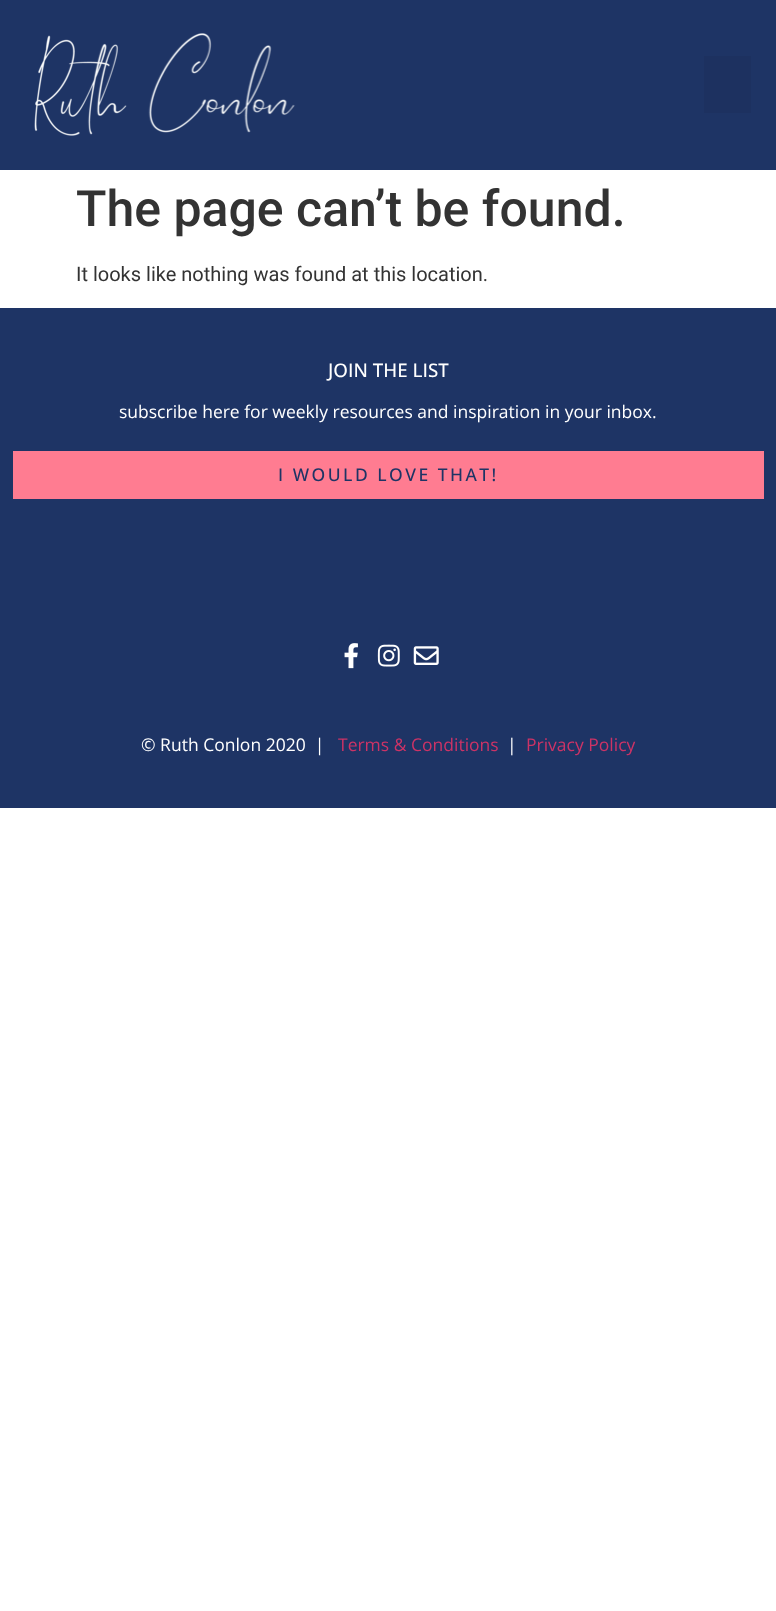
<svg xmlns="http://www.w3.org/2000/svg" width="776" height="1611">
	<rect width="100%" height="100%" fill="#FFFFFF" />
	<rect x="0" y="0" width="776" height="170" fill="#1E3465" />
	<image x="34" y="33" width="261" height="103" href="assets/img1.png" />
	<rect x="704" y="56" width="47" height="57" fill="#1D3160" />
	<text x="76" y="226" font-family="Roboto" font-size="50" font-weight="500" fill="#333333">The page can’t be found.</text>
	<text x="76" y="281" font-family="Roboto" font-size="20" fill="#333333">It looks like nothing was found at this location.</text>
	<rect x="0" y="308" width="776" height="500" fill="#1E3465" />
	<text x="328" y="377" font-family="Open Sans" font-size="18.75" font-weight="500" fill="#FFFFFF">JOIN THE LIST</text>
	<text x="119" y="418" font-family="Open Sans" font-size="17.5" fill="#FFFFFF">subscribe here for weekly resources and inspiration in your inbox.</text>
	<rect x="13" y="451" width="751" height="48" fill="#FF7C91" />
	<text x="278" y="481" font-family="Open Sans" font-size="17.5" font-weight="500" letter-spacing="2.5" fill="#1E3465">I WOULD LOVE THAT!</text>
	<image x="344" y="643" width="14" height="26" href="assets/img2.png" />
	<image x="377" y="644" width="23" height="23" href="assets/img3.png" />
	<image x="413" y="646" width="26" height="19" href="assets/img4.png" />
	<text x="141" y="751" font-family="Open Sans" font-size="17.5" fill="#FFFFFF" xml:space="preserve">© Ruth Conlon 2020  |</text>
	<text x="338" y="751" font-family="Open Sans" font-size="17.5" fill="#CC3366">Terms &amp; Conditions</text>
	<text x="507" y="751" font-family="Open Sans" font-size="17.5" fill="#FFFFFF">|</text>
	<text x="526" y="751" font-family="Open Sans" font-size="17.5" fill="#CC3366">Privacy Policy</text>
</svg>
